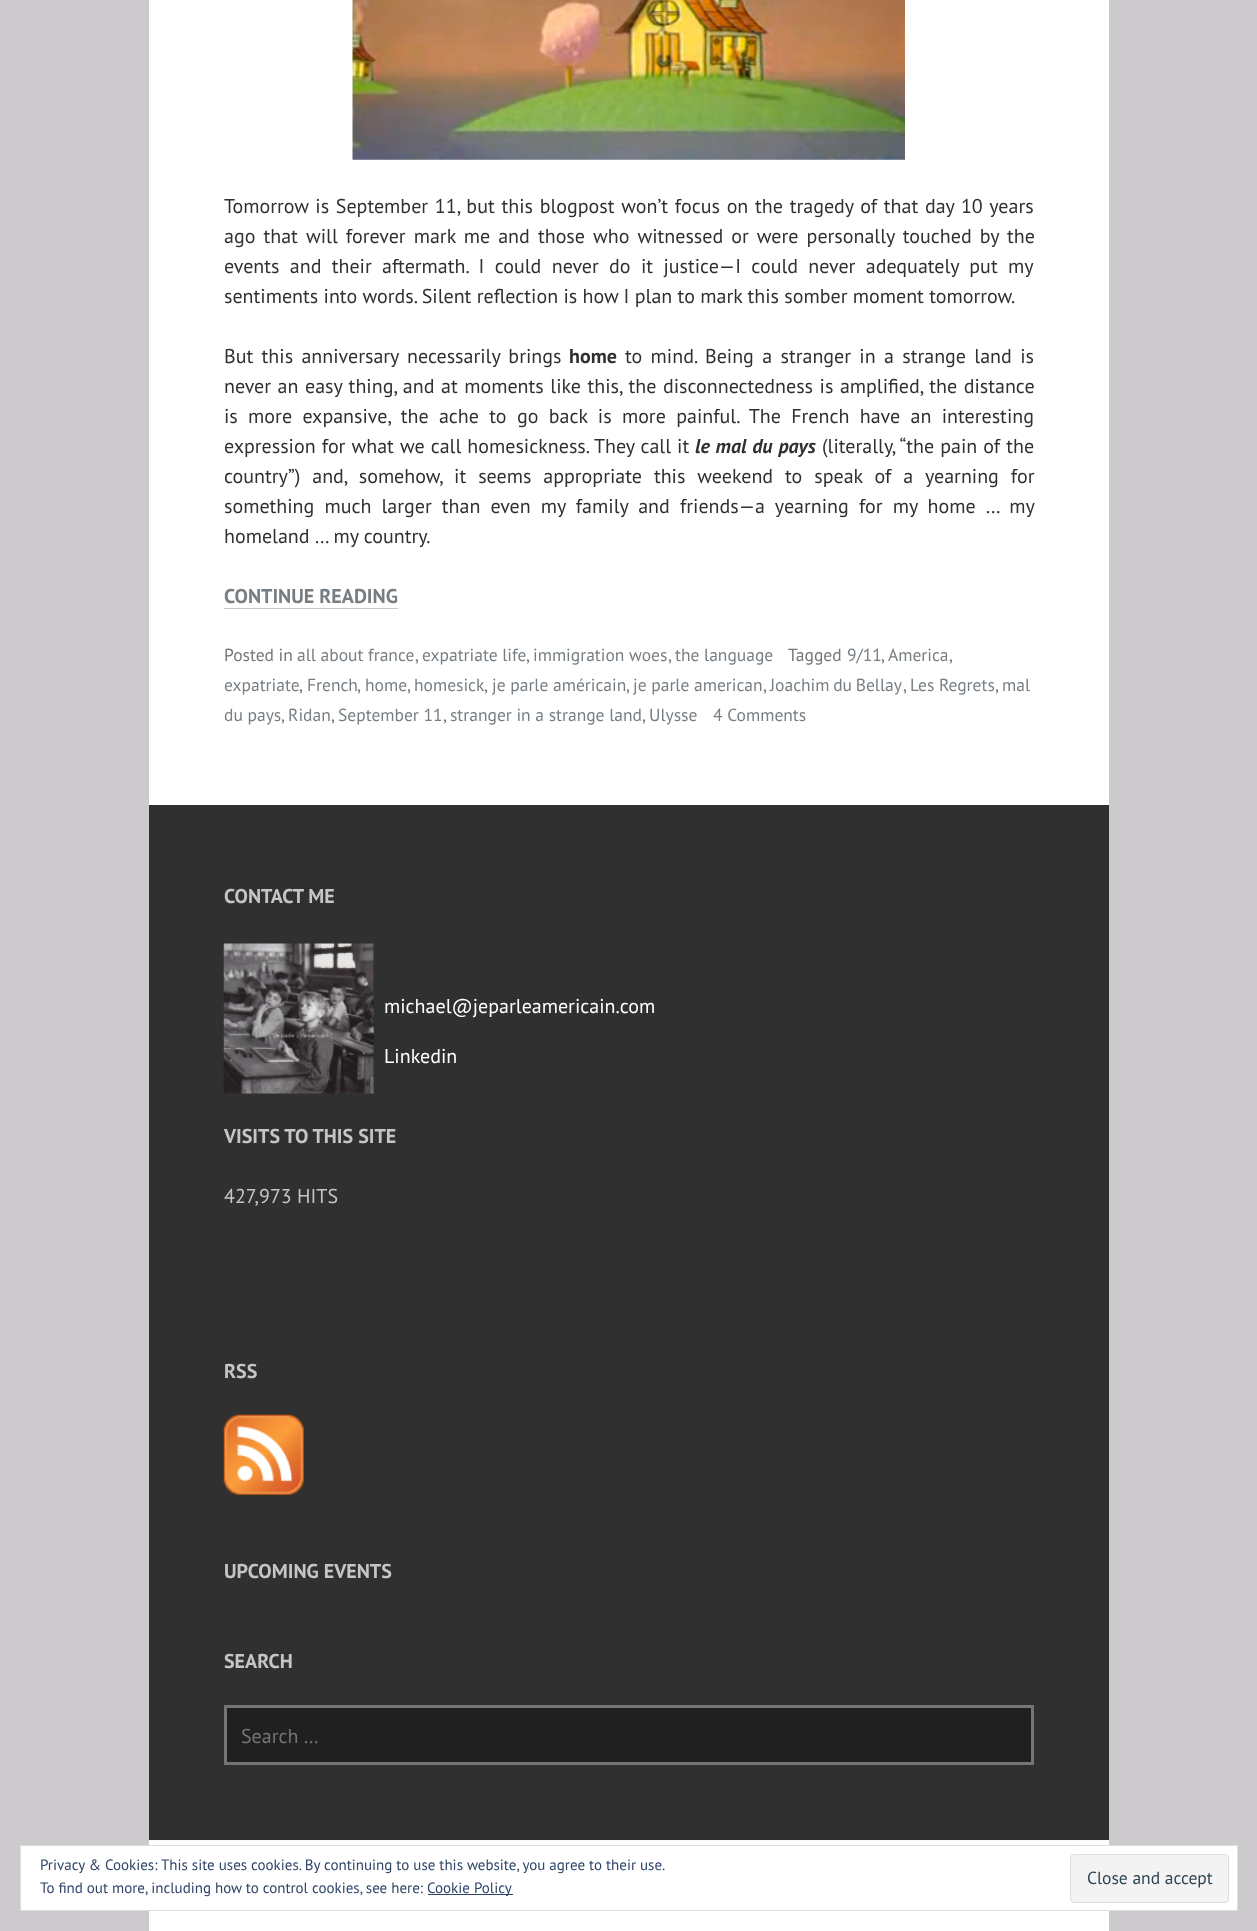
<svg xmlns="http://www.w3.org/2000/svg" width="1257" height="1931">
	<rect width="100%" height="100%" fill="#CCCACD" />
	<rect x="149" y="0" width="960" height="805" fill="#FFFFFF" />
	<image x="352" y="0" width="553" height="160" href="assets/img1.png" />
	<g font-family="PT Sans" font-size="20" fill="#303030">
		<text x="224" y="213" word-spacing="1.4">Tomorrow is September 11, but this blogpost won’t focus on the tragedy of that day 10 years</text>
		<text x="224" y="243" word-spacing="2.75">ago that will forever mark me and those who witnessed or were personally touched by the</text>
		<text x="224" y="273" word-spacing="5">events and their aftermath. I could never do it justice—I could never adequately put my</text>
		<text x="224" y="303">sentiments into words. Silent reflection is how I plan to mark this somber moment tomorrow.</text>
		<text x="224" y="363" word-spacing="3">But this anniversary necessarily brings</text>
	</g>
	<text x="569" y="363" font-family="PT Sans" font-size="20" font-weight="700" fill="#303030">home</text>
	<g font-family="PT Sans" font-size="20" fill="#303030">
		<text x="625" y="363" word-spacing="3">to mind. Being a stranger in a strange land is</text>
		<text x="224" y="393" word-spacing="1.2">never an easy thing, and at moments like this, the disconnectedness is amplified, the distance</text>
		<text x="224" y="423" word-spacing="5">is more expansive, the ache to go back is more painful. The French have an interesting</text>
		<text x="224" y="453" word-spacing="0.75">expression for what we call homesickness. They call it</text>
	</g>
	<text x="695" y="453" word-spacing="0.75" font-family="PT Sans" font-size="20" font-weight="700" font-style="italic" fill="#303030">le mal du pays</text>
	<g font-family="PT Sans" font-size="20" fill="#303030">
		<text x="822" y="453" word-spacing="0.75">(literally, “the pain of the</text>
		<text x="224" y="483" word-spacing="6.6">country”) and, somehow, it seems appropriate this weekend to speak of a yearning for</text>
		<text x="224" y="513" word-spacing="4.75">something much larger than even my family and friends—a yearning for my home … my</text>
		<text x="224" y="543">homeland … my country.</text>
	</g>
	<text x="224" y="603" font-family="PT Sans" font-size="20" font-weight="700" fill="#767E83">CONTINUE READING</text>
	<rect x="224" y="608" width="174" height="1" fill="#C5C5C5" />
	<text x="224" y="661" font-family="PT Sans" font-size="17.5" fill="#757575">Posted in</text>
	<text x="297" y="661" font-family="PT Sans" font-size="17.5" fill="#767E83">all about france</text>
	<text x="415" y="661" font-family="PT Sans" font-size="17.5" fill="#757575">,</text>
	<text x="422" y="661" font-family="PT Sans" font-size="17.5" fill="#767E83">expatriate life</text>
	<text x="526" y="661" font-family="PT Sans" font-size="17.5" fill="#757575">,</text>
	<text x="533" y="661" font-family="PT Sans" font-size="17.5" fill="#767E83">immigration woes</text>
	<text x="668" y="661" font-family="PT Sans" font-size="17.5" fill="#757575">,</text>
	<text x="675" y="661" font-family="PT Sans" font-size="17.5" fill="#767E83">the language</text>
	<text x="788" y="661" font-family="PT Sans" font-size="17.5" fill="#757575">Tagged</text>
	<text x="847" y="661" font-family="PT Sans" font-size="17.5" fill="#767E83">9/11</text>
	<text x="881" y="661" font-family="PT Sans" font-size="17.5" fill="#757575">,</text>
	<text x="888" y="661" font-family="PT Sans" font-size="17.5" fill="#767E83">America</text>
	<text x="949" y="661" font-family="PT Sans" font-size="17.5" fill="#757575">,</text>
	<text x="224" y="691" font-family="PT Sans" font-size="17.5" fill="#767E83">expatriate</text>
	<text x="299" y="691" font-family="PT Sans" font-size="17.5" fill="#757575">,</text>
	<text x="307" y="691" font-family="PT Sans" font-size="17.5" fill="#767E83">French</text>
	<text x="357" y="691" font-family="PT Sans" font-size="17.5" fill="#757575">,</text>
	<text x="365" y="691" font-family="PT Sans" font-size="17.5" fill="#767E83">home</text>
	<text x="407" y="691" font-family="PT Sans" font-size="17.5" fill="#757575">,</text>
	<text x="414" y="691" font-family="PT Sans" font-size="17.5" fill="#767E83">homesick</text>
	<text x="484" y="691" font-family="PT Sans" font-size="17.5" fill="#757575">,</text>
	<text x="492" y="691" font-family="PT Sans" font-size="17.5" fill="#767E83">je parle américain</text>
	<text x="626" y="691" font-family="PT Sans" font-size="17.5" fill="#757575">,</text>
	<text x="633" y="691" font-family="PT Sans" font-size="17.5" fill="#767E83">je parle american</text>
	<text x="763" y="691" font-family="PT Sans" font-size="17.5" fill="#757575">,</text>
	<text x="770" y="691" word-spacing="-1" font-family="PT Sans" font-size="17.5" fill="#767E83">Joachim du Bellay</text>
	<text x="903" y="691" font-family="PT Sans" font-size="17.5" fill="#757575">,</text>
	<text x="910" y="691" font-family="PT Sans" font-size="17.5" fill="#767E83">Les Regrets</text>
	<text x="995" y="691" font-family="PT Sans" font-size="17.5" fill="#757575">,</text>
	<g font-family="PT Sans" font-size="17.5" fill="#767E83">
		<text x="1002" y="691">mal</text>
		<text x="224" y="721">du pays</text>
	</g>
	<text x="281" y="721" font-family="PT Sans" font-size="17.5" fill="#757575">,</text>
	<text x="288" y="721" font-family="PT Sans" font-size="17.5" fill="#767E83">Ridan</text>
	<text x="331" y="721" font-family="PT Sans" font-size="17.5" fill="#757575">,</text>
	<text x="338" y="721" font-family="PT Sans" font-size="17.5" fill="#767E83">September 11</text>
	<text x="443" y="721" font-family="PT Sans" font-size="17.5" fill="#757575">,</text>
	<text x="450" y="721" font-family="PT Sans" font-size="17.5" fill="#767E83">stranger in a strange land</text>
	<text x="642" y="721" font-family="PT Sans" font-size="17.5" fill="#757575">,</text>
	<g font-family="PT Sans" font-size="17.5" fill="#767E83">
		<text x="649" y="721">Ulysse</text>
		<text x="713" y="721">4 Comments</text>
	</g>
	<rect x="149" y="805" width="960" height="1035" fill="#303030" />
	<text x="224" y="903" font-family="PT Sans" font-size="20" font-weight="700" fill="#C5C5C5">CONTACT ME</text>
	<image x="223" y="943" width="151" height="151" href="assets/img2.png" />
	<g font-family="PT Sans" font-size="20" fill="#FFFFFF">
		<text x="384" y="1013">michael@jeparleamericain.com</text>
		<text x="384" y="1063">Linkedin</text>
	</g>
	<text x="224" y="1143" font-family="PT Sans" font-size="20" font-weight="700" fill="#C5C5C5">VISITS TO THIS SITE</text>
	<text x="224" y="1203" font-family="PT Sans" font-size="20" fill="#C5C5C5">427,973 HITS</text>
	<text x="224" y="1378" font-family="PT Sans" font-size="20" font-weight="700" fill="#C5C5C5">RSS</text>
	<image x="223" y="1414" width="81" height="81" href="assets/img3.png" />
	<g font-family="PT Sans" font-size="20" font-weight="700" fill="#C5C5C5">
		<text x="224" y="1578">UPCOMING EVENTS</text>
		<text x="224" y="1668">SEARCH</text>
	</g>
	<rect x="225.5" y="1706.5" width="807" height="57" fill="#202020" stroke="#757575" stroke-width="3" />
	<text x="241" y="1743" font-family="PT Sans" font-size="20" fill="#757575">Search …</text>
	<rect x="149" y="1841" width="960" height="90" fill="#FFFFFF" />
	<rect x="149" y="1840" width="960" height="1" fill="#F8F8F8" />
	<rect x="20.5" y="1845.5" width="1217" height="65" fill="#FFFFFF" stroke="#DEDEDE" />
	<text x="40" y="1870" font-family="PT Sans" font-size="15" fill="#2E4467">Privacy &amp; Cookies: This site uses cookies. By continuing to use this website, you agree to their use.</text>
	<rect x="1070.5" y="1854.5" width="158" height="48" rx="3.5" fill="#F3F3F3" stroke="#DEDEDE" />
	<text x="1087" y="1884" font-family="PT Sans" font-size="17.5" fill="#2E4453">Close and accept</text>
	<text x="40" y="1893" font-family="PT Sans" font-size="15" fill="#2E4467">To find out more, including how to control cookies, see here:</text>
	<rect x="428" y="1894" width="85" height="1" fill="#2E4467" />
	<text x="427" y="1893" font-family="PT Sans" font-size="15" fill="#2E4467">Cookie Policy</text>
</svg>
